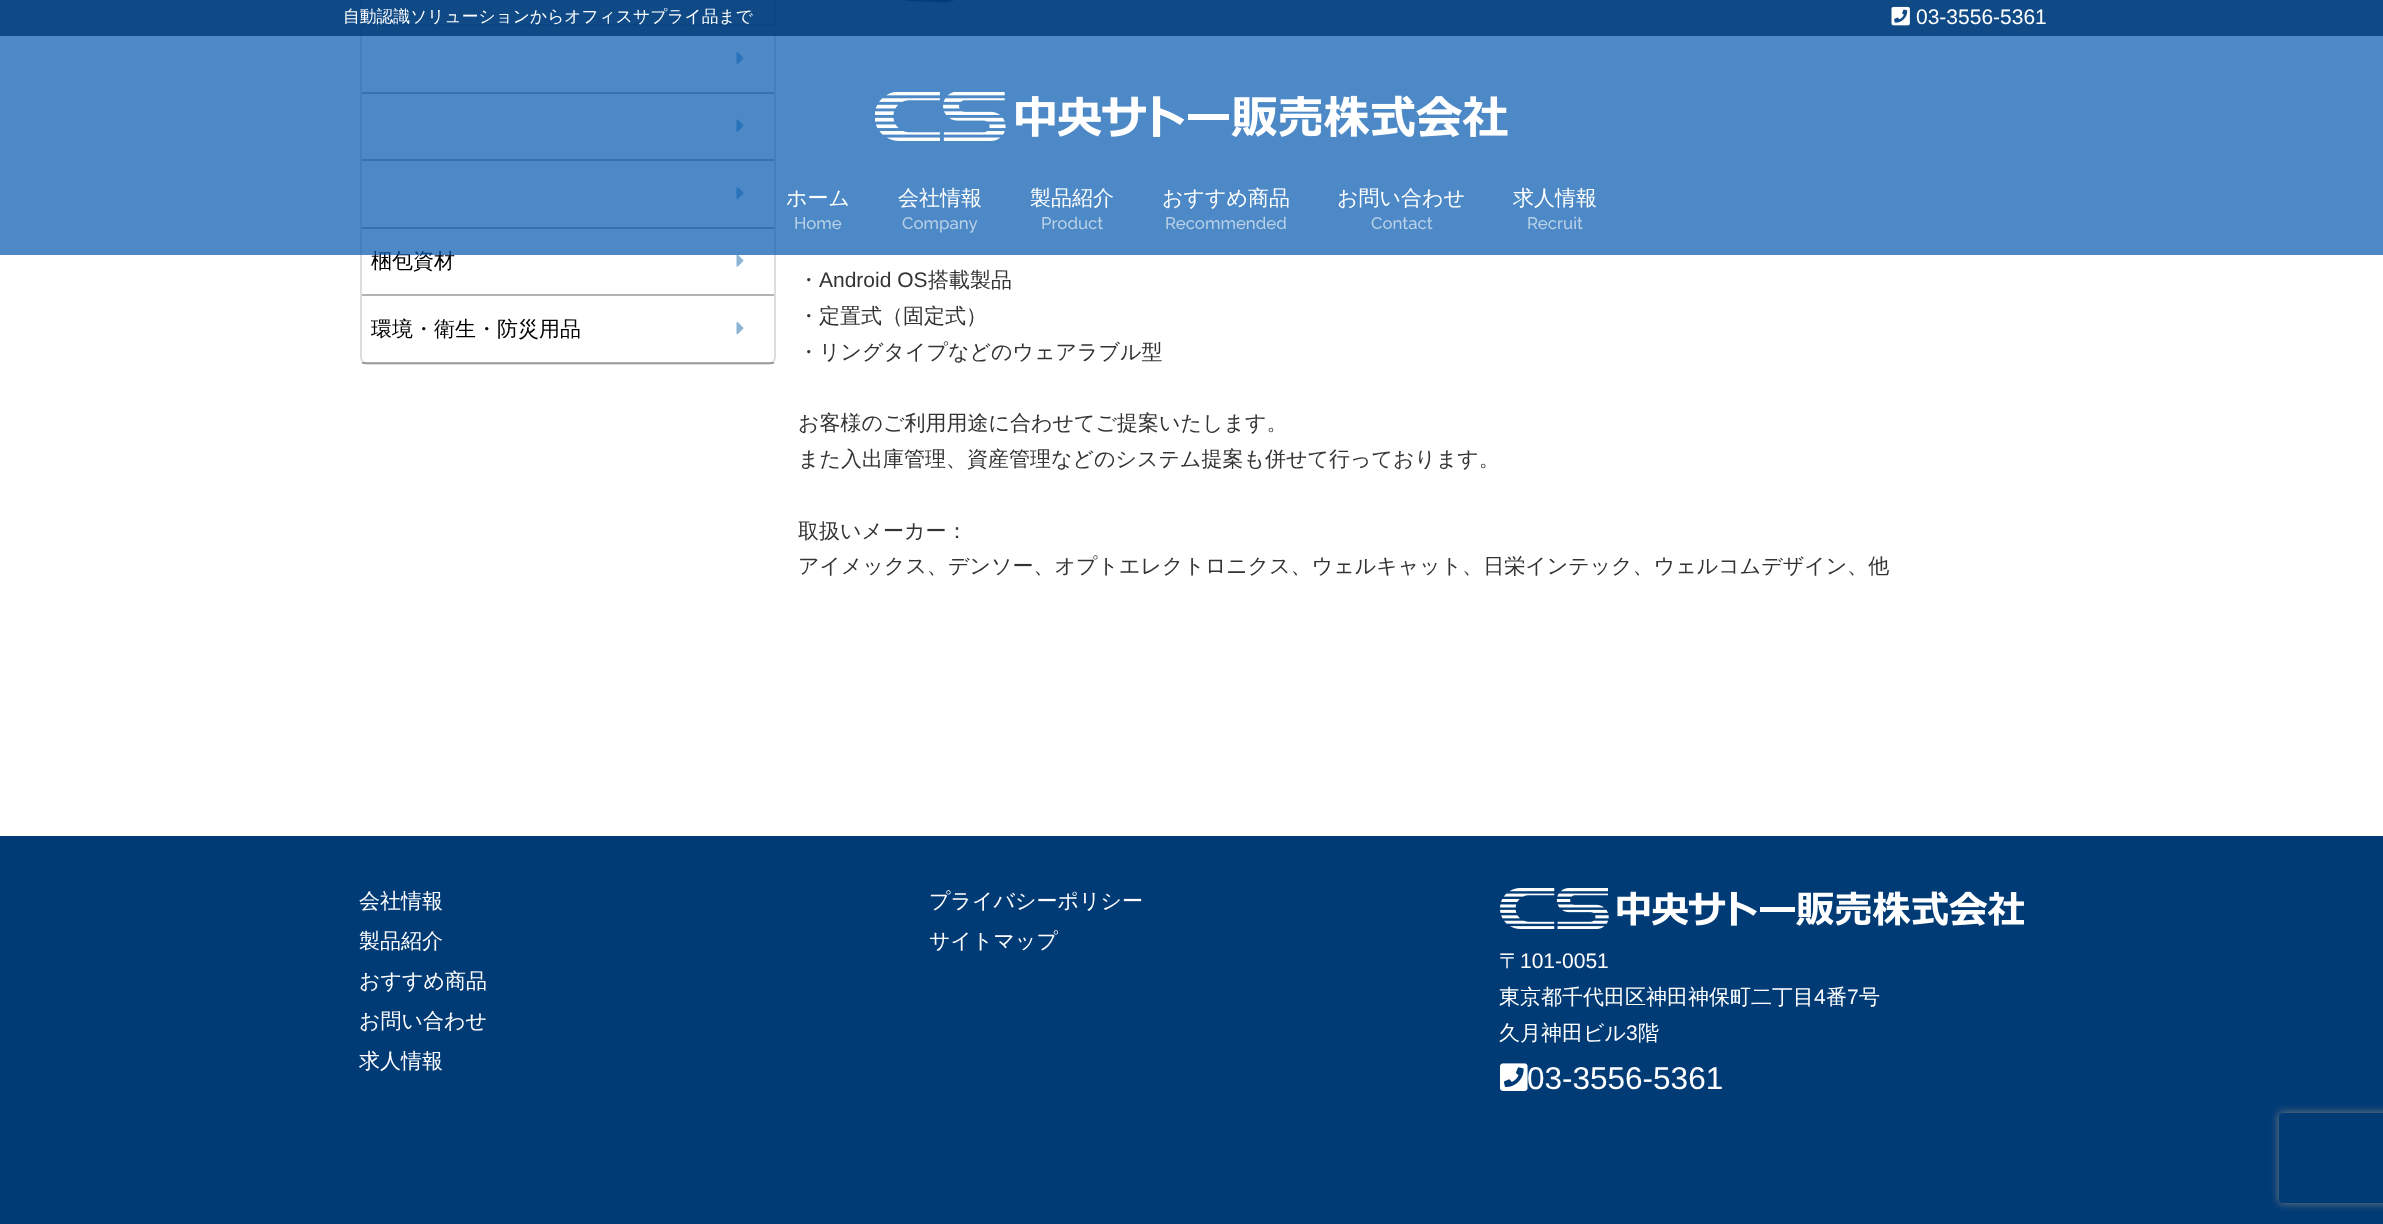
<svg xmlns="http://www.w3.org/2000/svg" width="2383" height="1224">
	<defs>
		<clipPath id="clip1"><path d="M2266 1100H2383V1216H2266ZM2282 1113H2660C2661.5 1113 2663 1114.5 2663 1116V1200C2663 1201.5 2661.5 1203 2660 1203H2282C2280.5 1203 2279 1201.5 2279 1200V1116C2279 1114.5 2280.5 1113 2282 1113Z" clip-rule="evenodd" /></clipPath>
	</defs>
	<rect width="100%" height="100%" fill="#FFFFFF" />
	<rect x="361" y="-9" width="414" height="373" rx="7" fill="none" stroke="#DDDDDD" stroke-width="2" />
	<rect x="362" y="24" width="412" height="2" fill="#B3B3B3" />
	<rect x="362" y="92" width="412" height="2" fill="#B3B3B3" />
	<image x="736" y="52" width="8" height="13" href="assets/img3.png" />
	<rect x="362" y="159" width="412" height="2" fill="#B3B3B3" />
	<image x="736" y="119" width="8" height="13" href="assets/img4.png" />
	<rect x="362" y="227" width="412" height="2" fill="#B3B3B3" />
	<image x="736" y="187" width="8" height="13" href="assets/img3.png" />
	<text x="371" y="268" font-family="WenQuanYi Zen Hei" font-size="21" font-weight="500" fill="#000000">梱包資材</text>
	<image x="736" y="254" width="8" height="13" href="assets/img4.png" />
	<image x="900" y="0" width="56" height="3" href="assets/img5.png" />
	<rect x="0" y="0" width="2383" height="255" fill="#0057AE" fill-opacity="0.7" />
	<rect x="0" y="0" width="2383" height="36" fill="#003B76" fill-opacity="0.8" />
	<text x="343" y="22" font-family="WenQuanYi Zen Hei" font-size="16.8" font-weight="500" fill="#FFFFFF">自動認識ソリューションからオフィスサプライ品まで</text>
	<image x="1891" y="6" width="19" height="20" href="assets/img1.png" />
	<text x="1916" y="24" font-family="Liberation Sans" font-size="21" fill="#FFFFFF">03-3556-5361</text>
	<image x="875" y="92" width="633" height="49" href="assets/img2.png" />
	<text x="786" y="205" font-family="WenQuanYi Zen Hei" font-size="21" font-weight="500" fill="#FFFFFF">ホーム</text>
	<text x="794" y="229" font-family="Raleway" font-size="16.8" font-weight="500" fill="#B8D0E8">Home</text>
	<text x="898" y="205" font-family="WenQuanYi Zen Hei" font-size="21" font-weight="500" fill="#FFFFFF">会社情報</text>
	<text x="902" y="229" font-family="Raleway" font-size="16.8" font-weight="500" fill="#B8D0E8">Company</text>
	<text x="1030" y="205" font-family="WenQuanYi Zen Hei" font-size="21" font-weight="500" fill="#FFFFFF">製品紹介</text>
	<text x="1041" y="229" font-family="Raleway" font-size="16.8" font-weight="500" fill="#B8D0E8">Product</text>
	<text x="1162" y="205" font-family="WenQuanYi Zen Hei" font-size="21" font-weight="500" fill="#FFFFFF">おすすめ商品</text>
	<text x="1165" y="229" font-family="Raleway" font-size="16.8" font-weight="500" fill="#B8D0E8">Recommended</text>
	<text x="1337" y="205" font-family="WenQuanYi Zen Hei" font-size="21" font-weight="500" fill="#FFFFFF">お問い合わせ</text>
	<text x="1371" y="229" font-family="Raleway" font-size="16.8" font-weight="500" fill="#B8D0E8">Contact</text>
	<text x="1513" y="205" font-family="WenQuanYi Zen Hei" font-size="21" font-weight="500" fill="#FFFFFF">求人情報</text>
	<text x="1527" y="229" font-family="Raleway" font-size="16.8" font-weight="500" fill="#B8D0E8">Recruit</text>
	<rect x="362" y="294" width="412" height="2" fill="#B3B3B3" />
	<rect x="362" y="362" width="412" height="2" fill="#000000" fill-opacity="0.3" />
	<text x="371" y="336" font-family="WenQuanYi Zen Hei" font-size="21" font-weight="500" fill="#000000">環境・衛生・防災用品</text>
	<image x="736" y="322" width="8" height="13" href="assets/img3.png" />
	<text x="798" y="287" font-family="WenQuanYi Zen Hei" font-size="21" font-weight="500" fill="#333333">・</text>
	<text x="819" y="287" font-family="Liberation Sans" font-size="21" fill="#333333">Android OS</text>
	<g font-family="WenQuanYi Zen Hei" font-size="21" font-weight="500" fill="#333333">
		<text x="928" y="287">搭載製品</text>
		<text x="798" y="323">・定置式（固定式）</text>
		<text x="798" y="359">・リングタイプなどのウェアラブル型</text>
		<text x="798" y="430">お客様のご利用用途に合わせてご提案いたします。</text>
		<text x="798" y="466">また入出庫管理、資産管理などのシステム提案も併せて行っております。</text>
		<text x="798" y="538">取扱いメーカー：</text>
		<text x="798" y="573">アイメックス、デンソー、オプトエレクトロニクス、ウェルキャット、日栄インテック、ウェルコムデザイン、他</text>
	</g>
	<rect x="0" y="836" width="2383" height="388" fill="#003B76" />
	<g font-family="WenQuanYi Zen Hei" font-size="21" font-weight="500" fill="#FFFFFF">
		<text x="359" y="908">会社情報</text>
		<text x="359" y="948">製品紹介</text>
		<text x="359" y="988">おすすめ商品</text>
		<text x="359" y="1028">お問い合わせ</text>
		<text x="359" y="1068">求人情報</text>
		<text x="929" y="908">プライバシーポリシー</text>
		<text x="929" y="948">サイトマップ</text>
	</g>
	<image x="1500" y="888" width="524" height="41" href="assets/img6.png" />
	<text x="1499" y="968" font-family="WenQuanYi Zen Hei" font-size="21" font-weight="500" fill="#FFFFFF">〒</text>
	<text x="1520" y="968" font-family="Liberation Sans" font-size="21" fill="#FFFFFF">101-0051</text>
	<text x="1499" y="1004" font-family="WenQuanYi Zen Hei" font-size="21" font-weight="500" fill="#FFFFFF">東京都千代田区神田神保町二丁目</text>
	<text x="1814" y="1004" font-family="Liberation Sans" font-size="21" fill="#FFFFFF">4</text>
	<text x="1826" y="1004" font-family="WenQuanYi Zen Hei" font-size="21" font-weight="500" fill="#FFFFFF">番</text>
	<text x="1847" y="1004" font-family="Liberation Sans" font-size="21" fill="#FFFFFF">7</text>
	<g font-family="WenQuanYi Zen Hei" font-size="21" font-weight="500" fill="#FFFFFF">
		<text x="1859" y="1004">号</text>
		<text x="1499" y="1040">久月神田ビル</text>
	</g>
	<text x="1626" y="1040" font-family="Liberation Sans" font-size="21" fill="#FFFFFF">3</text>
	<text x="1638" y="1040" font-family="WenQuanYi Zen Hei" font-size="21" font-weight="500" fill="#FFFFFF">階</text>
	<image x="1500" y="1063" width="28" height="28" href="assets/img7.png" />
	<text x="1527" y="1089" font-family="Liberation Sans" font-size="31.5" fill="#FFFFFF">03-3556-5361</text>
	<g clip-path="url(#clip1)">
		<rect x="2279" y="1113" width="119" height="90" rx="3" fill="#808080" filter="blur(4px)" />
	</g>
</svg>
